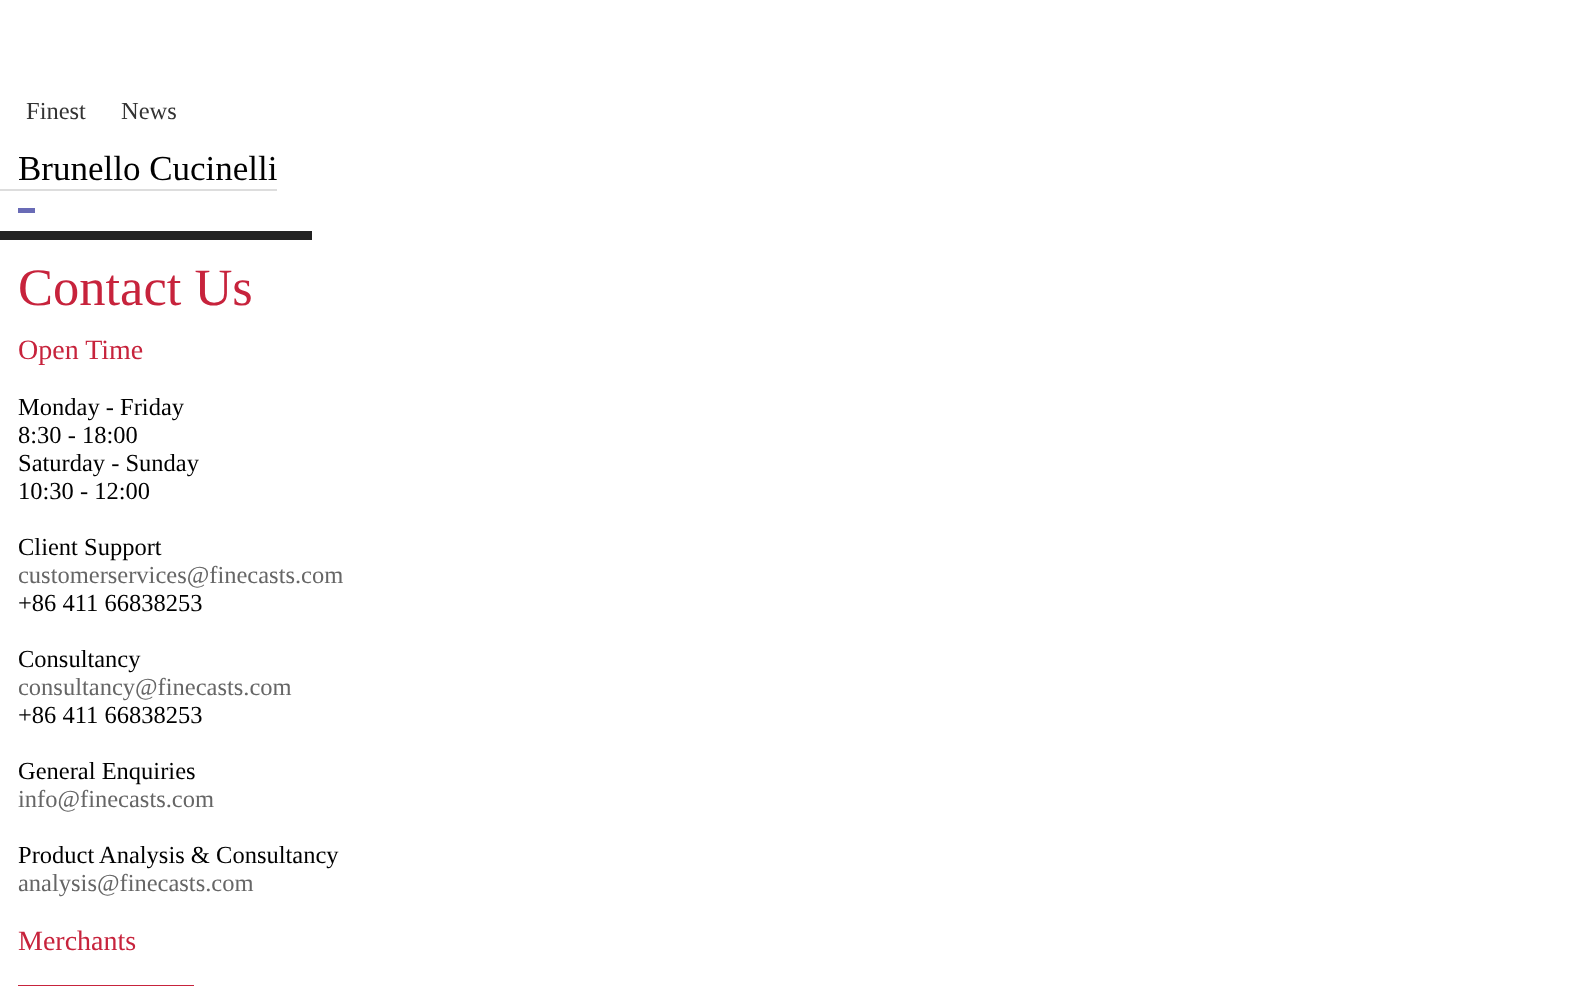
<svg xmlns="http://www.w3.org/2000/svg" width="1578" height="986">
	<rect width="100%" height="100%" fill="#FFFFFF" />
	<g font-family="Liberation Serif" font-size="24.5" fill="#333333">
		<text x="26" y="119">Finest</text>
		<text x="121" y="119">News</text>
	</g>
	<rect x="0" y="189" width="277" height="2" fill="#DDDDDD" />
	<text x="18" y="180" font-family="Liberation Serif" font-size="35" fill="#000000">Brunello Cucinelli</text>
	<rect x="0" y="231" width="312" height="9" fill="#222222" />
	<rect x="18" y="208" width="17" height="5" fill="#696BB6" />
	<text x="18" y="305" font-family="Liberation Serif" font-size="52.5" fill="#C7233C">Contact Us</text>
	<text x="18" y="359" font-family="Liberation Serif" font-size="28" fill="#C7233C">Open Time</text>
	<g font-family="Liberation Serif" font-size="24.5" fill="#000000">
		<text x="18" y="415">Monday - Friday</text>
		<text x="18" y="443">8:30 - 18:00</text>
		<text x="18" y="471">Saturday - Sunday</text>
		<text x="18" y="499">10:30 - 12:00</text>
		<text x="18" y="555">Client Support</text>
	</g>
	<text x="18" y="583" font-family="Liberation Serif" font-size="24.5" fill="#666666">customerservices@finecasts.com</text>
	<g font-family="Liberation Serif" font-size="24.5" fill="#000000">
		<text x="18" y="611">+86 411 66838253</text>
		<text x="18" y="667">Consultancy</text>
	</g>
	<text x="18" y="695" font-family="Liberation Serif" font-size="24.5" fill="#666666">consultancy@finecasts.com</text>
	<g font-family="Liberation Serif" font-size="24.5" fill="#000000">
		<text x="18" y="723">+86 411 66838253</text>
		<text x="18" y="779">General Enquiries</text>
	</g>
	<text x="18" y="807" font-family="Liberation Serif" font-size="24.5" fill="#666666">info@finecasts.com</text>
	<text x="18" y="863" font-family="Liberation Serif" font-size="24.5" fill="#000000">Product Analysis &amp; Consultancy</text>
	<text x="18" y="891" font-family="Liberation Serif" font-size="24.5" fill="#666666">analysis@finecasts.com</text>
	<text x="18" y="950" font-family="Liberation Serif" font-size="28" fill="#C7233C">Merchants</text>
	<rect x="18" y="985" width="176" height="1" fill="#C7233C" />
</svg>
